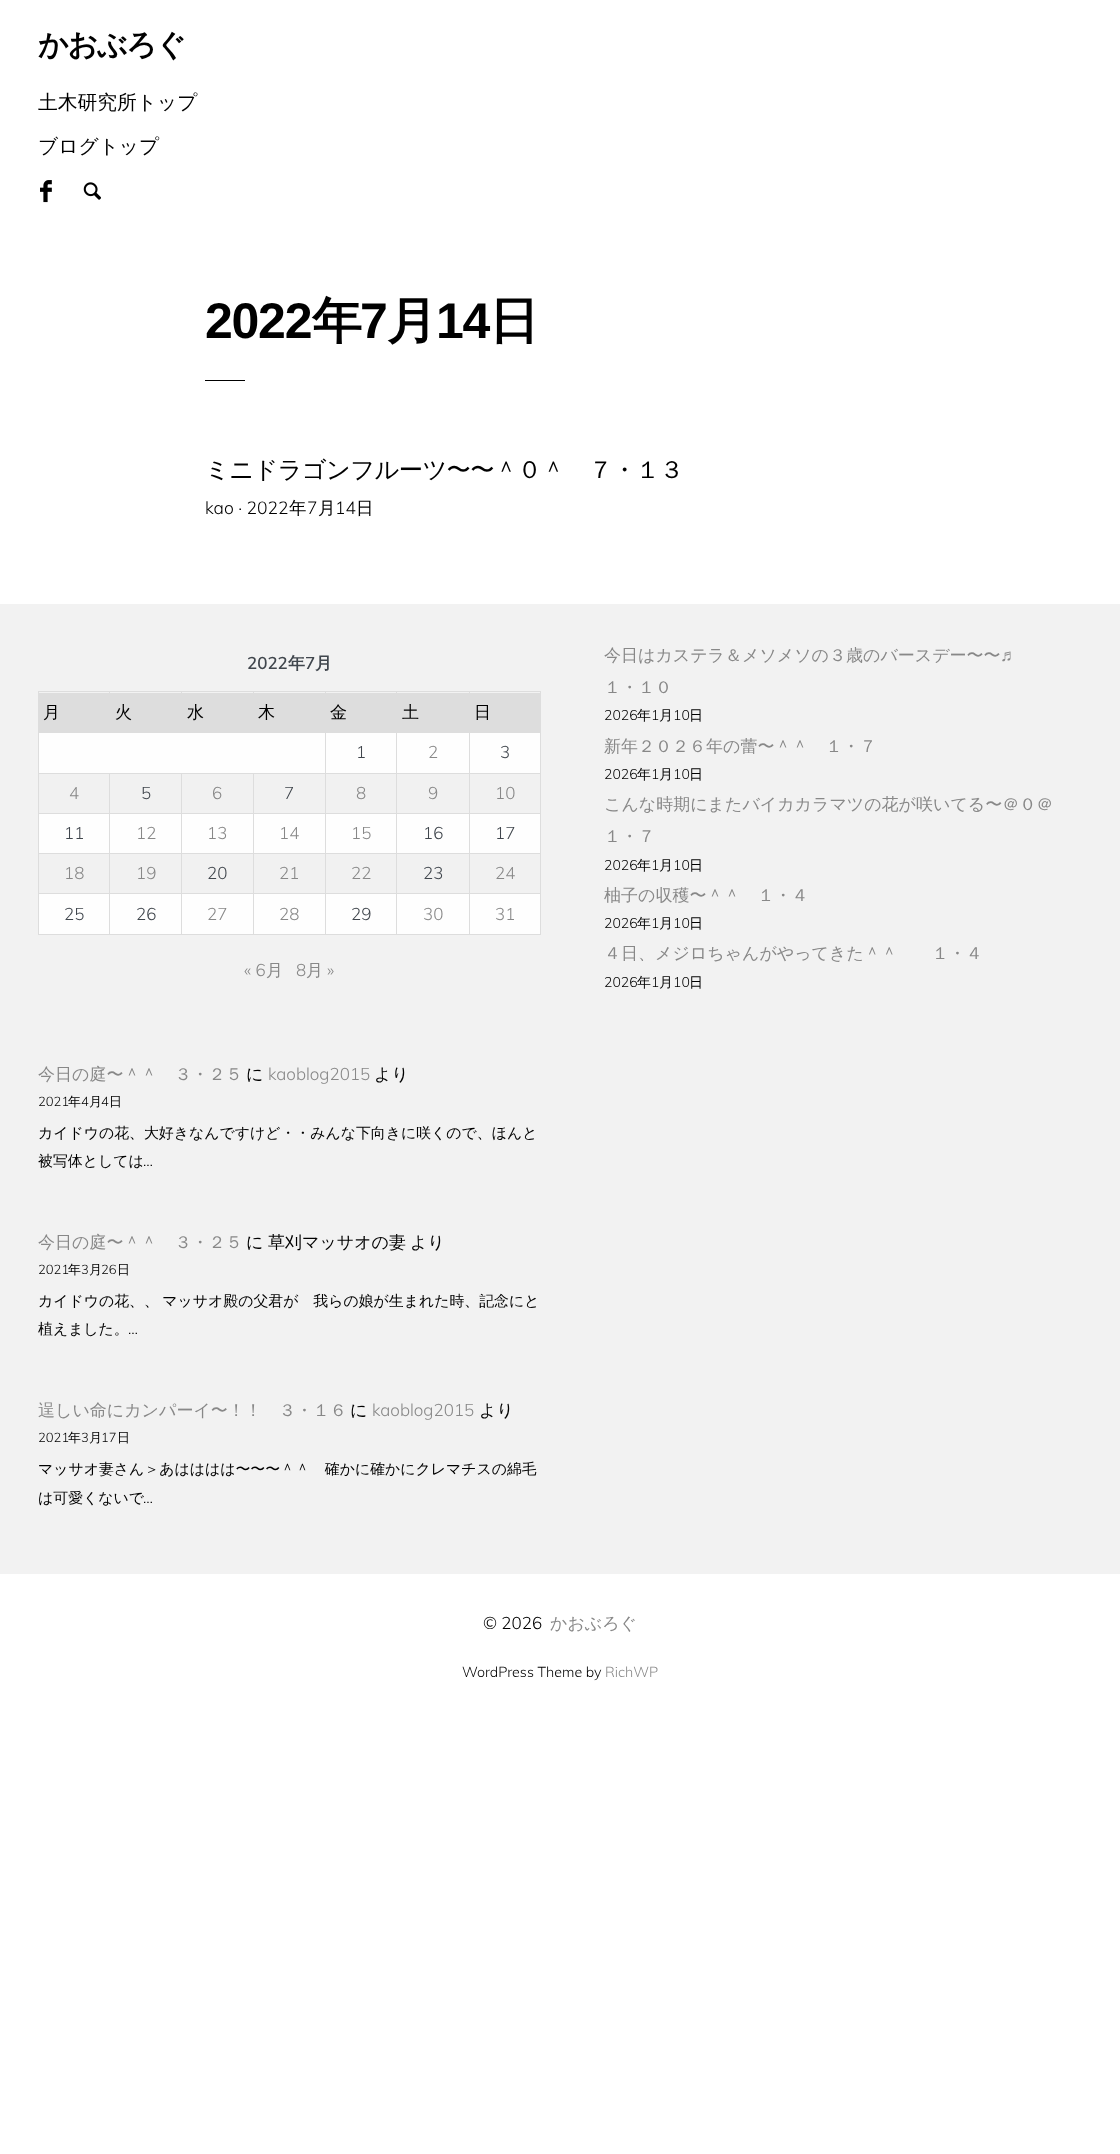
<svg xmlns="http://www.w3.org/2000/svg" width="1120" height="2154">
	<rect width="100%" height="100%" fill="#FFFFFF" />
	<text x="38" y="55" font-family="WenQuanYi Zen Hei" font-size="30" font-weight="700" letter-spacing="-1.25" fill="#000000">かおぶろぐ</text>
	<g font-family="WenQuanYi Zen Hei" font-size="19.75" font-weight="500" fill="#000000">
		<text x="38" y="109">土木研究所トップ</text>
		<text x="38" y="153">ブログトップ</text>
	</g>
	<image x="40" y="180" width="12" height="23" href="assets/img1.png" />
	<image x="83" y="182" width="18" height="18" href="assets/img2.png" />
	<text x="205" y="338" font-family="Liberation Sans" font-size="50" font-weight="700" letter-spacing="-1.25" fill="#000000">2022</text>
	<text x="312" y="338" font-family="WenQuanYi Zen Hei" font-size="50" font-weight="700" letter-spacing="-1.25" fill="#000000">年</text>
	<text x="360" y="338" font-family="Liberation Sans" font-size="50" font-weight="700" letter-spacing="-1.25" fill="#000000">7</text>
	<text x="387" y="338" font-family="WenQuanYi Zen Hei" font-size="50" font-weight="700" letter-spacing="-1.25" fill="#000000">月</text>
	<text x="436" y="338" font-family="Liberation Sans" font-size="50" font-weight="700" letter-spacing="-1.25" fill="#000000">14</text>
	<text x="489" y="338" font-family="WenQuanYi Zen Hei" font-size="50" font-weight="700" letter-spacing="-1.25" fill="#000000">日</text>
	<rect x="205" y="380" width="40" height="1" fill="#000000" />
	<text x="205" y="478" font-family="WenQuanYi Zen Hei" font-size="24.25" font-weight="500" letter-spacing="-0.6" fill="#000000">ミニドラゴンフルーツ〜〜＾０＾　７・１３</text>
	<text x="205" y="514" font-family="Muli" font-size="17.5" font-weight="300" fill="#000000">kao · 2022</text>
	<text x="289" y="514" font-family="WenQuanYi Zen Hei" font-size="17.5" font-weight="500" fill="#000000">年</text>
	<text x="307" y="514" font-family="Muli" font-size="17.5" font-weight="300" fill="#000000">7</text>
	<text x="318" y="514" font-family="WenQuanYi Zen Hei" font-size="17.5" font-weight="500" fill="#000000">月</text>
	<text x="335" y="514" font-family="Muli" font-size="17.5" font-weight="300" fill="#000000">14</text>
	<text x="356" y="514" font-family="WenQuanYi Zen Hei" font-size="17.5" font-weight="500" fill="#000000">日</text>
	<rect x="0" y="604" width="1120" height="970" fill="#F2F2F2" />
	<text x="247" y="669" font-family="Muli" font-size="17" font-weight="600" fill="#40464D">2022</text>
	<text x="288" y="669" font-family="WenQuanYi Zen Hei" font-size="17" font-weight="700" fill="#40464D">年</text>
	<text x="305" y="669" font-family="Muli" font-size="17" font-weight="600" fill="#40464D">7</text>
	<text x="315" y="669" font-family="WenQuanYi Zen Hei" font-size="17" font-weight="700" fill="#40464D">月</text>
	<rect x="39" y="693" width="70" height="40" fill="#DDDDDD" />
	<rect x="469" y="691" width="72" height="1" fill="#DDDDDD" />
	<rect x="470" y="693" width="70" height="40" fill="#DDDDDD" />
	<rect x="469" y="731" width="72" height="1" fill="#DDDDDD" />
	<rect x="39" y="733" width="501" height="201" fill="#FEFEFE" />
	<rect x="469" y="773" width="72" height="1" fill="#DDDDDD" />
	<rect x="39" y="774" width="501" height="39" fill="#F1F1F1" />
	<rect x="469" y="813" width="72" height="1" fill="#DDDDDD" />
	<rect x="469" y="853" width="72" height="1" fill="#DDDDDD" />
	<rect x="39" y="854" width="501" height="39" fill="#F1F1F1" />
	<rect x="469" y="893" width="72" height="1" fill="#DDDDDD" />
	<rect x="540" y="893" width="1" height="42" fill="#DDDDDD" />
	<rect x="469" y="934" width="72" height="1" fill="#DDDDDD" />
	<rect x="469" y="893" width="1" height="42" fill="#DDDDDD" />
	<rect x="396" y="893" width="74" height="1" fill="#DDDDDD" />
	<rect x="469" y="853" width="1" height="41" fill="#DDDDDD" />
	<rect x="396" y="853" width="74" height="1" fill="#DDDDDD" />
	<rect x="469" y="813" width="1" height="41" fill="#DDDDDD" />
	<rect x="396" y="813" width="74" height="1" fill="#DDDDDD" />
	<rect x="469" y="773" width="1" height="41" fill="#DDDDDD" />
	<rect x="396" y="773" width="74" height="1" fill="#DDDDDD" />
	<rect x="469" y="731" width="1" height="43" fill="#DDDDDD" />
	<rect x="469" y="691" width="1" height="42" fill="#DDDDDD" />
	<rect x="396" y="691" width="74" height="1" fill="#DDDDDD" />
	<rect x="396" y="691" width="1" height="2" fill="#DDDDDD" />
	<rect x="325" y="691" width="73" height="1" fill="#DDDDDD" />
	<rect x="396" y="934" width="74" height="1" fill="#DDDDDD" />
	<rect x="396" y="893" width="1" height="42" fill="#DDDDDD" />
	<rect x="325" y="893" width="73" height="1" fill="#DDDDDD" />
	<rect x="396" y="853" width="1" height="41" fill="#DDDDDD" />
	<rect x="325" y="853" width="73" height="1" fill="#DDDDDD" />
	<rect x="396" y="813" width="1" height="41" fill="#DDDDDD" />
	<rect x="325" y="813" width="73" height="1" fill="#DDDDDD" />
	<rect x="396" y="773" width="1" height="41" fill="#DDDDDD" />
	<rect x="325" y="773" width="73" height="1" fill="#DDDDDD" />
	<rect x="325" y="934" width="73" height="1" fill="#DDDDDD" />
	<rect x="325" y="893" width="1" height="42" fill="#DDDDDD" />
	<rect x="253" y="893" width="73" height="1" fill="#DDDDDD" />
	<rect x="325" y="853" width="1" height="41" fill="#DDDDDD" />
	<rect x="253" y="853" width="73" height="1" fill="#DDDDDD" />
	<rect x="325" y="813" width="1" height="41" fill="#DDDDDD" />
	<rect x="253" y="813" width="73" height="1" fill="#DDDDDD" />
	<rect x="325" y="773" width="1" height="41" fill="#DDDDDD" />
	<rect x="253" y="773" width="73" height="1" fill="#DDDDDD" />
	<rect x="325" y="731" width="1" height="43" fill="#DDDDDD" />
	<rect x="325" y="691" width="1" height="42" fill="#DDDDDD" />
	<rect x="253" y="691" width="73" height="1" fill="#DDDDDD" />
	<rect x="110" y="693" width="71" height="40" fill="#DDDDDD" />
	<rect x="182" y="693" width="71" height="40" fill="#DDDDDD" />
	<rect x="38" y="731" width="216" height="1" fill="#DDDDDD" />
	<rect x="253" y="691" width="1" height="42" fill="#DDDDDD" />
	<rect x="181" y="691" width="73" height="1" fill="#DDDDDD" />
	<rect x="181" y="691" width="1" height="42" fill="#DDDDDD" />
	<rect x="109" y="691" width="74" height="1" fill="#DDDDDD" />
	<rect x="109" y="691" width="1" height="42" fill="#DDDDDD" />
	<rect x="38" y="691" width="72" height="1" fill="#DDDDDD" />
	<rect x="253" y="934" width="73" height="1" fill="#DDDDDD" />
	<rect x="253" y="893" width="1" height="42" fill="#DDDDDD" />
	<rect x="181" y="893" width="73" height="1" fill="#DDDDDD" />
	<rect x="253" y="853" width="1" height="41" fill="#DDDDDD" />
	<rect x="181" y="853" width="73" height="1" fill="#DDDDDD" />
	<rect x="253" y="813" width="1" height="41" fill="#DDDDDD" />
	<rect x="181" y="813" width="73" height="1" fill="#DDDDDD" />
	<rect x="253" y="773" width="1" height="41" fill="#DDDDDD" />
	<rect x="181" y="773" width="73" height="1" fill="#DDDDDD" />
	<rect x="181" y="934" width="73" height="1" fill="#DDDDDD" />
	<rect x="181" y="893" width="1" height="42" fill="#DDDDDD" />
	<rect x="109" y="893" width="74" height="1" fill="#DDDDDD" />
	<rect x="181" y="853" width="1" height="41" fill="#DDDDDD" />
	<rect x="109" y="853" width="74" height="1" fill="#DDDDDD" />
	<rect x="181" y="813" width="1" height="41" fill="#DDDDDD" />
	<rect x="109" y="813" width="74" height="1" fill="#DDDDDD" />
	<rect x="181" y="773" width="1" height="41" fill="#DDDDDD" />
	<rect x="109" y="773" width="74" height="1" fill="#DDDDDD" />
	<rect x="109" y="934" width="74" height="1" fill="#DDDDDD" />
	<rect x="109" y="893" width="1" height="42" fill="#DDDDDD" />
	<rect x="38" y="893" width="72" height="1" fill="#DDDDDD" />
	<rect x="109" y="853" width="1" height="41" fill="#DDDDDD" />
	<rect x="38" y="853" width="72" height="1" fill="#DDDDDD" />
	<rect x="109" y="813" width="1" height="41" fill="#DDDDDD" />
	<rect x="38" y="813" width="72" height="1" fill="#DDDDDD" />
	<rect x="109" y="773" width="1" height="41" fill="#DDDDDD" />
	<rect x="38" y="773" width="72" height="1" fill="#DDDDDD" />
	<rect x="38" y="934" width="72" height="1" fill="#DDDDDD" />
	<rect x="38" y="893" width="1" height="42" fill="#DDDDDD" />
	<rect x="38" y="853" width="1" height="41" fill="#DDDDDD" />
	<rect x="38" y="813" width="1" height="41" fill="#DDDDDD" />
	<rect x="38" y="773" width="1" height="41" fill="#DDDDDD" />
	<rect x="38" y="731" width="1" height="43" fill="#DDDDDD" />
	<rect x="38" y="691" width="1" height="42" fill="#DDDDDD" />
	<g font-family="WenQuanYi Zen Hei" font-size="17" font-weight="500" fill="#000000">
		<text x="43" y="718">月</text>
		<text x="115" y="718">火</text>
		<text x="187" y="718">水</text>
	</g>
	<rect x="254" y="693" width="71" height="40" fill="#DDDDDD" />
	<text x="258" y="718" font-family="WenQuanYi Zen Hei" font-size="17" font-weight="500" fill="#000000">木</text>
	<rect x="326" y="693" width="143" height="40" fill="#DDDDDD" />
	<g font-family="WenQuanYi Zen Hei" font-size="17" font-weight="500" fill="#000000">
		<text x="330" y="718">金</text>
		<text x="402" y="718">土</text>
	</g>
	<rect x="540" y="853" width="1" height="41" fill="#DDDDDD" />
	<rect x="540" y="813" width="1" height="41" fill="#DDDDDD" />
	<rect x="540" y="773" width="1" height="41" fill="#DDDDDD" />
	<rect x="540" y="731" width="1" height="43" fill="#DDDDDD" />
	<rect x="540" y="691" width="1" height="42" fill="#DDDDDD" />
	<text x="474" y="718" font-family="WenQuanYi Zen Hei" font-size="17" font-weight="500" fill="#000000">日</text>
	<text x="356" y="758" font-family="Muli" font-size="17" font-weight="300" fill="#40464D">1</text>
	<rect x="396" y="731" width="1" height="43" fill="#DDDDDD" />
	<text x="428" y="758" font-family="Muli" font-size="17" font-weight="300" fill="#888888">2</text>
	<text x="500" y="758" font-family="Muli" font-size="17" font-weight="300" fill="#40464D">3</text>
	<text x="69" y="799" font-family="Muli" font-size="17" font-weight="300" fill="#888888">4</text>
	<text x="141" y="799" font-family="Muli" font-size="17" font-weight="300" fill="#40464D">5</text>
	<text x="212" y="799" font-family="Muli" font-size="17" font-weight="300" fill="#888888">6</text>
	<text x="284" y="799" font-family="Muli" font-size="17" font-weight="300" fill="#40464D">7</text>
	<g font-family="Muli" font-size="17" font-weight="300" fill="#888888">
		<text x="356" y="799">8</text>
		<text x="428" y="799">9</text>
		<text x="495" y="799">10</text>
	</g>
	<text x="64" y="839" font-family="Muli" font-size="17" font-weight="300" fill="#40464D">11</text>
	<g font-family="Muli" font-size="17" font-weight="300" fill="#888888">
		<text x="136" y="839">12</text>
		<text x="207" y="839">13</text>
		<text x="279" y="839">14</text>
		<text x="351" y="839">15</text>
	</g>
	<g font-family="Muli" font-size="17" font-weight="300" fill="#40464D">
		<text x="423" y="839">16</text>
		<text x="495" y="839">17</text>
	</g>
	<g font-family="Muli" font-size="17" font-weight="300" fill="#888888">
		<text x="64" y="879">18</text>
		<text x="136" y="879">19</text>
	</g>
	<text x="207" y="879" font-family="Muli" font-size="17" font-weight="300" fill="#40464D">20</text>
	<g font-family="Muli" font-size="17" font-weight="300" fill="#888888">
		<text x="279" y="879">21</text>
		<text x="351" y="879">22</text>
	</g>
	<text x="423" y="879" font-family="Muli" font-size="17" font-weight="300" fill="#40464D">23</text>
	<text x="495" y="879" font-family="Muli" font-size="17" font-weight="300" fill="#888888">24</text>
	<g font-family="Muli" font-size="17" font-weight="300" fill="#40464D">
		<text x="64" y="920">25</text>
		<text x="136" y="920">26</text>
	</g>
	<g font-family="Muli" font-size="17" font-weight="300" fill="#888888">
		<text x="207" y="920">27</text>
		<text x="279" y="920">28</text>
	</g>
	<text x="351" y="920" font-family="Muli" font-size="17" font-weight="300" fill="#40464D">29</text>
	<g font-family="Muli" font-size="17" font-weight="300" fill="#888888">
		<text x="423" y="920">30</text>
		<text x="495" y="920">31</text>
		<text x="244" y="976">« 6</text>
	</g>
	<text x="266" y="976" font-family="WenQuanYi Zen Hei" font-size="17" font-weight="500" fill="#888888">月</text>
	<text x="296" y="976" font-family="Muli" font-size="17" font-weight="300" fill="#888888">8</text>
	<text x="306" y="976" font-family="WenQuanYi Zen Hei" font-size="17" font-weight="500" fill="#888888">月</text>
	<text x="327" y="976" font-family="Muli" font-size="17" font-weight="300" fill="#888888">»</text>
	<text x="604" y="661" font-family="WenQuanYi Zen Hei" font-size="17" font-weight="500" fill="#888888">今日はカステラ＆メソメソの３歳のバースデー〜〜</text>
	<text x="1000" y="661" font-family="Liberation Sans" font-size="17" fill="#888888">♬</text>
	<text x="604" y="693" font-family="WenQuanYi Zen Hei" font-size="17" font-weight="500" fill="#888888">１・１０</text>
	<text x="604" y="720" font-family="Muli" font-size="14" font-weight="300" fill="#000000">2026</text>
	<text x="637" y="720" font-family="WenQuanYi Zen Hei" font-size="14" font-weight="500" fill="#000000">年</text>
	<text x="651" y="720" font-family="Muli" font-size="14" font-weight="300" fill="#000000">1</text>
	<text x="659" y="720" font-family="WenQuanYi Zen Hei" font-size="14" font-weight="500" fill="#000000">月</text>
	<text x="673" y="720" font-family="Muli" font-size="14" font-weight="300" fill="#000000">10</text>
	<text x="689" y="720" font-family="WenQuanYi Zen Hei" font-size="14" font-weight="500" fill="#000000">日</text>
	<text x="604" y="752" font-family="WenQuanYi Zen Hei" font-size="17" font-weight="500" fill="#888888">新年２０２６年の蕾〜＾＾　１・７</text>
	<text x="604" y="779" font-family="Muli" font-size="14" font-weight="300" fill="#000000">2026</text>
	<text x="637" y="779" font-family="WenQuanYi Zen Hei" font-size="14" font-weight="500" fill="#000000">年</text>
	<text x="651" y="779" font-family="Muli" font-size="14" font-weight="300" fill="#000000">1</text>
	<text x="659" y="779" font-family="WenQuanYi Zen Hei" font-size="14" font-weight="500" fill="#000000">月</text>
	<text x="673" y="779" font-family="Muli" font-size="14" font-weight="300" fill="#000000">10</text>
	<text x="689" y="779" font-family="WenQuanYi Zen Hei" font-size="14" font-weight="500" fill="#000000">日</text>
	<g font-family="WenQuanYi Zen Hei" font-size="17" font-weight="500" fill="#888888">
		<text x="604" y="810">こんな時期にまたバイカカラマツの花が咲いてる〜＠０＠</text>
		<text x="604" y="842">１・７</text>
	</g>
	<text x="604" y="870" font-family="Muli" font-size="14" font-weight="300" fill="#000000">2026</text>
	<text x="637" y="870" font-family="WenQuanYi Zen Hei" font-size="14" font-weight="500" fill="#000000">年</text>
	<text x="651" y="870" font-family="Muli" font-size="14" font-weight="300" fill="#000000">1</text>
	<text x="659" y="870" font-family="WenQuanYi Zen Hei" font-size="14" font-weight="500" fill="#000000">月</text>
	<text x="673" y="870" font-family="Muli" font-size="14" font-weight="300" fill="#000000">10</text>
	<text x="689" y="870" font-family="WenQuanYi Zen Hei" font-size="14" font-weight="500" fill="#000000">日</text>
	<text x="604" y="901" font-family="WenQuanYi Zen Hei" font-size="17" font-weight="500" fill="#888888">柚子の収穫〜＾＾　１・４</text>
	<text x="604" y="928" font-family="Muli" font-size="14" font-weight="300" fill="#000000">2026</text>
	<text x="637" y="928" font-family="WenQuanYi Zen Hei" font-size="14" font-weight="500" fill="#000000">年</text>
	<text x="651" y="928" font-family="Muli" font-size="14" font-weight="300" fill="#000000">1</text>
	<text x="659" y="928" font-family="WenQuanYi Zen Hei" font-size="14" font-weight="500" fill="#000000">月</text>
	<text x="673" y="928" font-family="Muli" font-size="14" font-weight="300" fill="#000000">10</text>
	<text x="689" y="928" font-family="WenQuanYi Zen Hei" font-size="14" font-weight="500" fill="#000000">日</text>
	<text x="604" y="959" font-family="WenQuanYi Zen Hei" font-size="17" font-weight="500" fill="#888888">４日、メジロちゃんがやってきた＾＾　　１・４</text>
	<text x="604" y="987" font-family="Muli" font-size="14" font-weight="300" fill="#000000">2026</text>
	<text x="637" y="987" font-family="WenQuanYi Zen Hei" font-size="14" font-weight="500" fill="#000000">年</text>
	<text x="651" y="987" font-family="Muli" font-size="14" font-weight="300" fill="#000000">1</text>
	<text x="659" y="987" font-family="WenQuanYi Zen Hei" font-size="14" font-weight="500" fill="#000000">月</text>
	<text x="673" y="987" font-family="Muli" font-size="14" font-weight="300" fill="#000000">10</text>
	<text x="689" y="987" font-family="WenQuanYi Zen Hei" font-size="14" font-weight="500" fill="#000000">日</text>
	<text x="38" y="1080" font-family="WenQuanYi Zen Hei" font-size="17" font-weight="500" fill="#888888">今日の庭〜＾＾　３・２５</text>
	<text x="246" y="1080" font-family="WenQuanYi Zen Hei" font-size="17" font-weight="500" fill="#000000">に</text>
	<text x="268" y="1080" font-family="Muli" font-size="17" font-weight="300" fill="#888888">kaoblog2015</text>
	<text x="374" y="1080" font-family="WenQuanYi Zen Hei" font-size="17" font-weight="500" fill="#000000">より</text>
	<text x="38" y="1106" font-family="Muli" font-size="13" font-weight="300" fill="#000000">2021</text>
	<text x="68" y="1106" font-family="WenQuanYi Zen Hei" font-size="13" font-weight="500" fill="#000000">年</text>
	<text x="81" y="1106" font-family="Muli" font-size="13" font-weight="300" fill="#000000">4</text>
	<text x="89" y="1106" font-family="WenQuanYi Zen Hei" font-size="13" font-weight="500" fill="#000000">月</text>
	<text x="101" y="1106" font-family="Muli" font-size="13" font-weight="300" fill="#000000">4</text>
	<text x="109" y="1106" font-family="WenQuanYi Zen Hei" font-size="13" font-weight="500" fill="#000000">日</text>
	<g font-family="WenQuanYi Zen Hei" font-size="14.9" font-weight="500" fill="#000000">
		<text x="38" y="1138">カイドウの花、大好きなんですけど・・みんな下向きに咲くので、ほんと</text>
		<text x="38" y="1166">被写体としては</text>
	</g>
	<text x="143" y="1166" font-family="Muli" font-size="14.9" font-weight="300" fill="#000000">…</text>
	<text x="38" y="1248" font-family="WenQuanYi Zen Hei" font-size="17" font-weight="500" fill="#888888">今日の庭〜＾＾　３・２５</text>
	<g font-family="WenQuanYi Zen Hei" font-size="17" font-weight="500" fill="#000000">
		<text x="246" y="1248">に</text>
		<text x="268" y="1248">草刈マッサオの妻</text>
		<text x="410" y="1248">より</text>
	</g>
	<text x="38" y="1274" font-family="Muli" font-size="13" font-weight="300" fill="#000000">2021</text>
	<text x="68" y="1274" font-family="WenQuanYi Zen Hei" font-size="13" font-weight="500" fill="#000000">年</text>
	<text x="81" y="1274" font-family="Muli" font-size="13" font-weight="300" fill="#000000">3</text>
	<text x="89" y="1274" font-family="WenQuanYi Zen Hei" font-size="13" font-weight="500" fill="#000000">月</text>
	<text x="101" y="1274" font-family="Muli" font-size="13" font-weight="300" fill="#000000">26</text>
	<text x="117" y="1274" font-family="WenQuanYi Zen Hei" font-size="13" font-weight="500" fill="#000000">日</text>
	<g font-family="WenQuanYi Zen Hei" font-size="14.9" font-weight="500" fill="#000000">
		<text x="38" y="1306" word-spacing="-1">カイドウの花、、 マッサオ殿の父君が　我らの娘が生まれた時、記念にと</text>
		<text x="38" y="1334">植えました。</text>
	</g>
	<text x="128" y="1334" font-family="Muli" font-size="14.9" font-weight="300" fill="#000000">…</text>
	<text x="38" y="1416" font-family="WenQuanYi Zen Hei" font-size="17" font-weight="500" fill="#888888">逞しい命にカンパーイ〜！！　３・１６</text>
	<text x="350" y="1416" font-family="WenQuanYi Zen Hei" font-size="17" font-weight="500" fill="#000000">に</text>
	<text x="372" y="1416" font-family="Muli" font-size="17" font-weight="300" fill="#888888">kaoblog2015</text>
	<text x="479" y="1416" font-family="WenQuanYi Zen Hei" font-size="17" font-weight="500" fill="#000000">より</text>
	<text x="38" y="1442" font-family="Muli" font-size="13" font-weight="300" fill="#000000">2021</text>
	<text x="68" y="1442" font-family="WenQuanYi Zen Hei" font-size="13" font-weight="500" fill="#000000">年</text>
	<text x="81" y="1442" font-family="Muli" font-size="13" font-weight="300" fill="#000000">3</text>
	<text x="89" y="1442" font-family="WenQuanYi Zen Hei" font-size="13" font-weight="500" fill="#000000">月</text>
	<text x="101" y="1442" font-family="Muli" font-size="13" font-weight="300" fill="#000000">17</text>
	<text x="117" y="1442" font-family="WenQuanYi Zen Hei" font-size="13" font-weight="500" fill="#000000">日</text>
	<g font-family="WenQuanYi Zen Hei" font-size="14.9" font-weight="500" fill="#000000">
		<text x="38" y="1474">マッサオ妻さん＞あはははは〜〜〜＾＾　確かに確かにクレマチスの綿毛</text>
		<text x="38" y="1503">は可愛くないで</text>
	</g>
	<text x="143" y="1503" font-family="Muli" font-size="14.9" font-weight="300" fill="#000000">…</text>
	<text x="483" y="1629" font-family="Muli" font-size="17" font-weight="300" fill="#000000">© 2026</text>
	<text x="550" y="1629" font-family="WenQuanYi Zen Hei" font-size="17" font-weight="500" fill="#888888">かおぶろぐ</text>
	<text x="462" y="1677" font-family="Muli" font-size="14.25" font-weight="300" fill="#000000">WordPress Theme by</text>
	<text x="605" y="1677" font-family="Muli" font-size="14.25" font-weight="300" fill="#888888">RichWP</text>
</svg>
